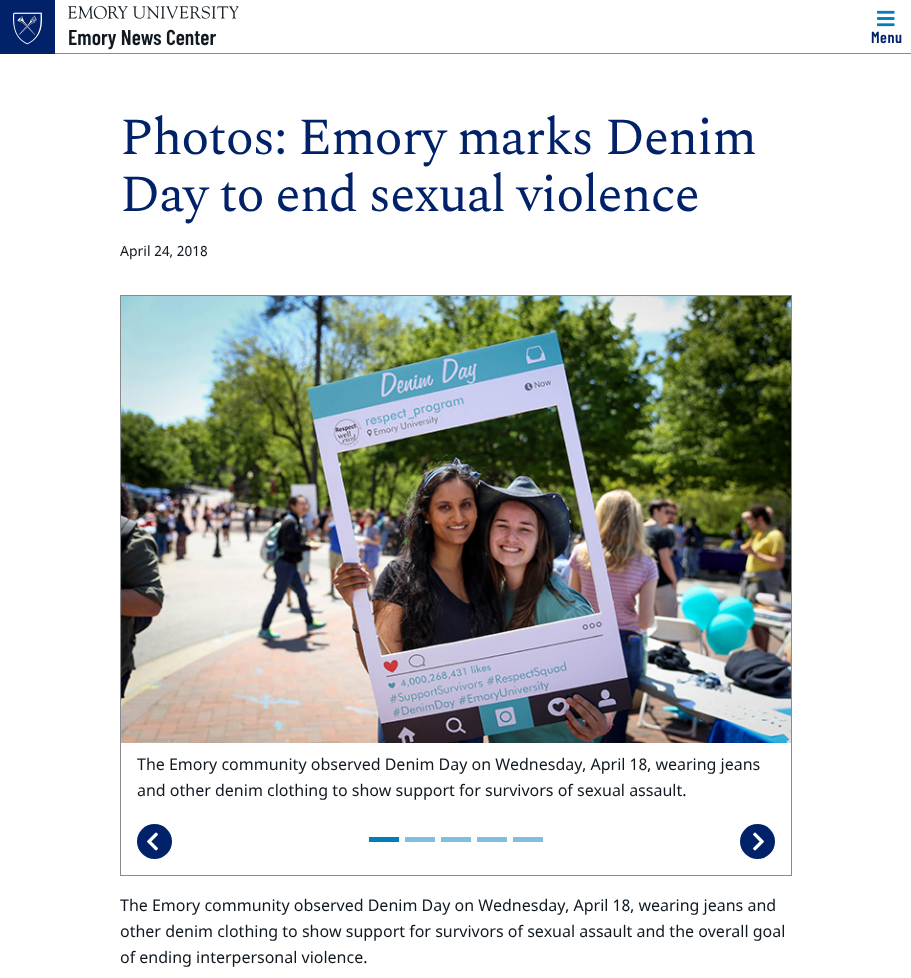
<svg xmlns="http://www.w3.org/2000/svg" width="911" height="978">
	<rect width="100%" height="100%" fill="#FFFFFF" />
	<rect x="55" y="53" width="856" height="1" fill="#888B8D" />
	<rect x="0" y="0" width="55" height="54" fill="#012169" />
	<image x="13" y="12" width="29" height="33" href="assets/img1.png" />
	<image x="68" y="6" width="171" height="13" href="assets/img2.png" />
	<text x="68" y="45" font-family="Barlow Condensed" font-size="21.5" font-weight="600" fill="#101820">Emory News Center</text>
	<image x="877" y="10" width="18" height="17" href="assets/img3.png" />
	<text x="871" y="43" font-family="Barlow Condensed" font-size="16" font-weight="600" letter-spacing="0.5" fill="#012169">Menu</text>
	<g font-family="Spectral" font-size="52" letter-spacing="-1.05" fill="#012169">
		<text x="120" y="154">Photos: Emory marks Denim</text>
		<text x="120" y="211">Day to end sexual violence</text>
	</g>
	<text x="120" y="256" font-family="Noto Sans" font-size="14" fill="#101820">April 24, 2018</text>
	<rect x="120.5" y="295.5" width="671" height="580" fill="none" stroke="#888B8D" />
	<image x="121" y="296" width="670" height="447" href="assets/img4.png" />
	<g font-family="Noto Sans" font-size="16" fill="#101820">
		<text x="137" y="770">The Emory community observed Denim Day on Wednesday, April 18, wearing jeans</text>
		<text x="137" y="796">and other denim clothing to show support for survivors of sexual assault.</text>
	</g>
	<circle cx="154.5" cy="841.5" r="17.5" fill="#012169" />
	<image x="147" y="832" width="11" height="19" href="assets/img5.png" />
	<rect x="369" y="837" width="30" height="5" fill="#007DBA" />
	<rect x="405" y="837" width="30" height="5" fill="#80BEDD" />
	<rect x="441" y="837" width="30" height="5" fill="#80BEDD" />
	<rect x="477" y="837" width="30" height="5" fill="#80BEDD" />
	<rect x="513" y="837" width="30" height="5" fill="#80BEDD" />
	<circle cx="757.5" cy="841.5" r="17.5" fill="#012169" />
	<image x="753" y="832" width="11" height="19" href="assets/img6.png" />
	<g font-family="Noto Sans" font-size="16" fill="#101820">
		<text x="120" y="911">The Emory community observed Denim Day on Wednesday, April 18, wearing jeans and</text>
		<text x="120" y="937">other denim clothing to show support for survivors of sexual assault and the overall goal</text>
		<text x="120" y="963">of ending interpersonal violence.</text>
	</g>
</svg>
